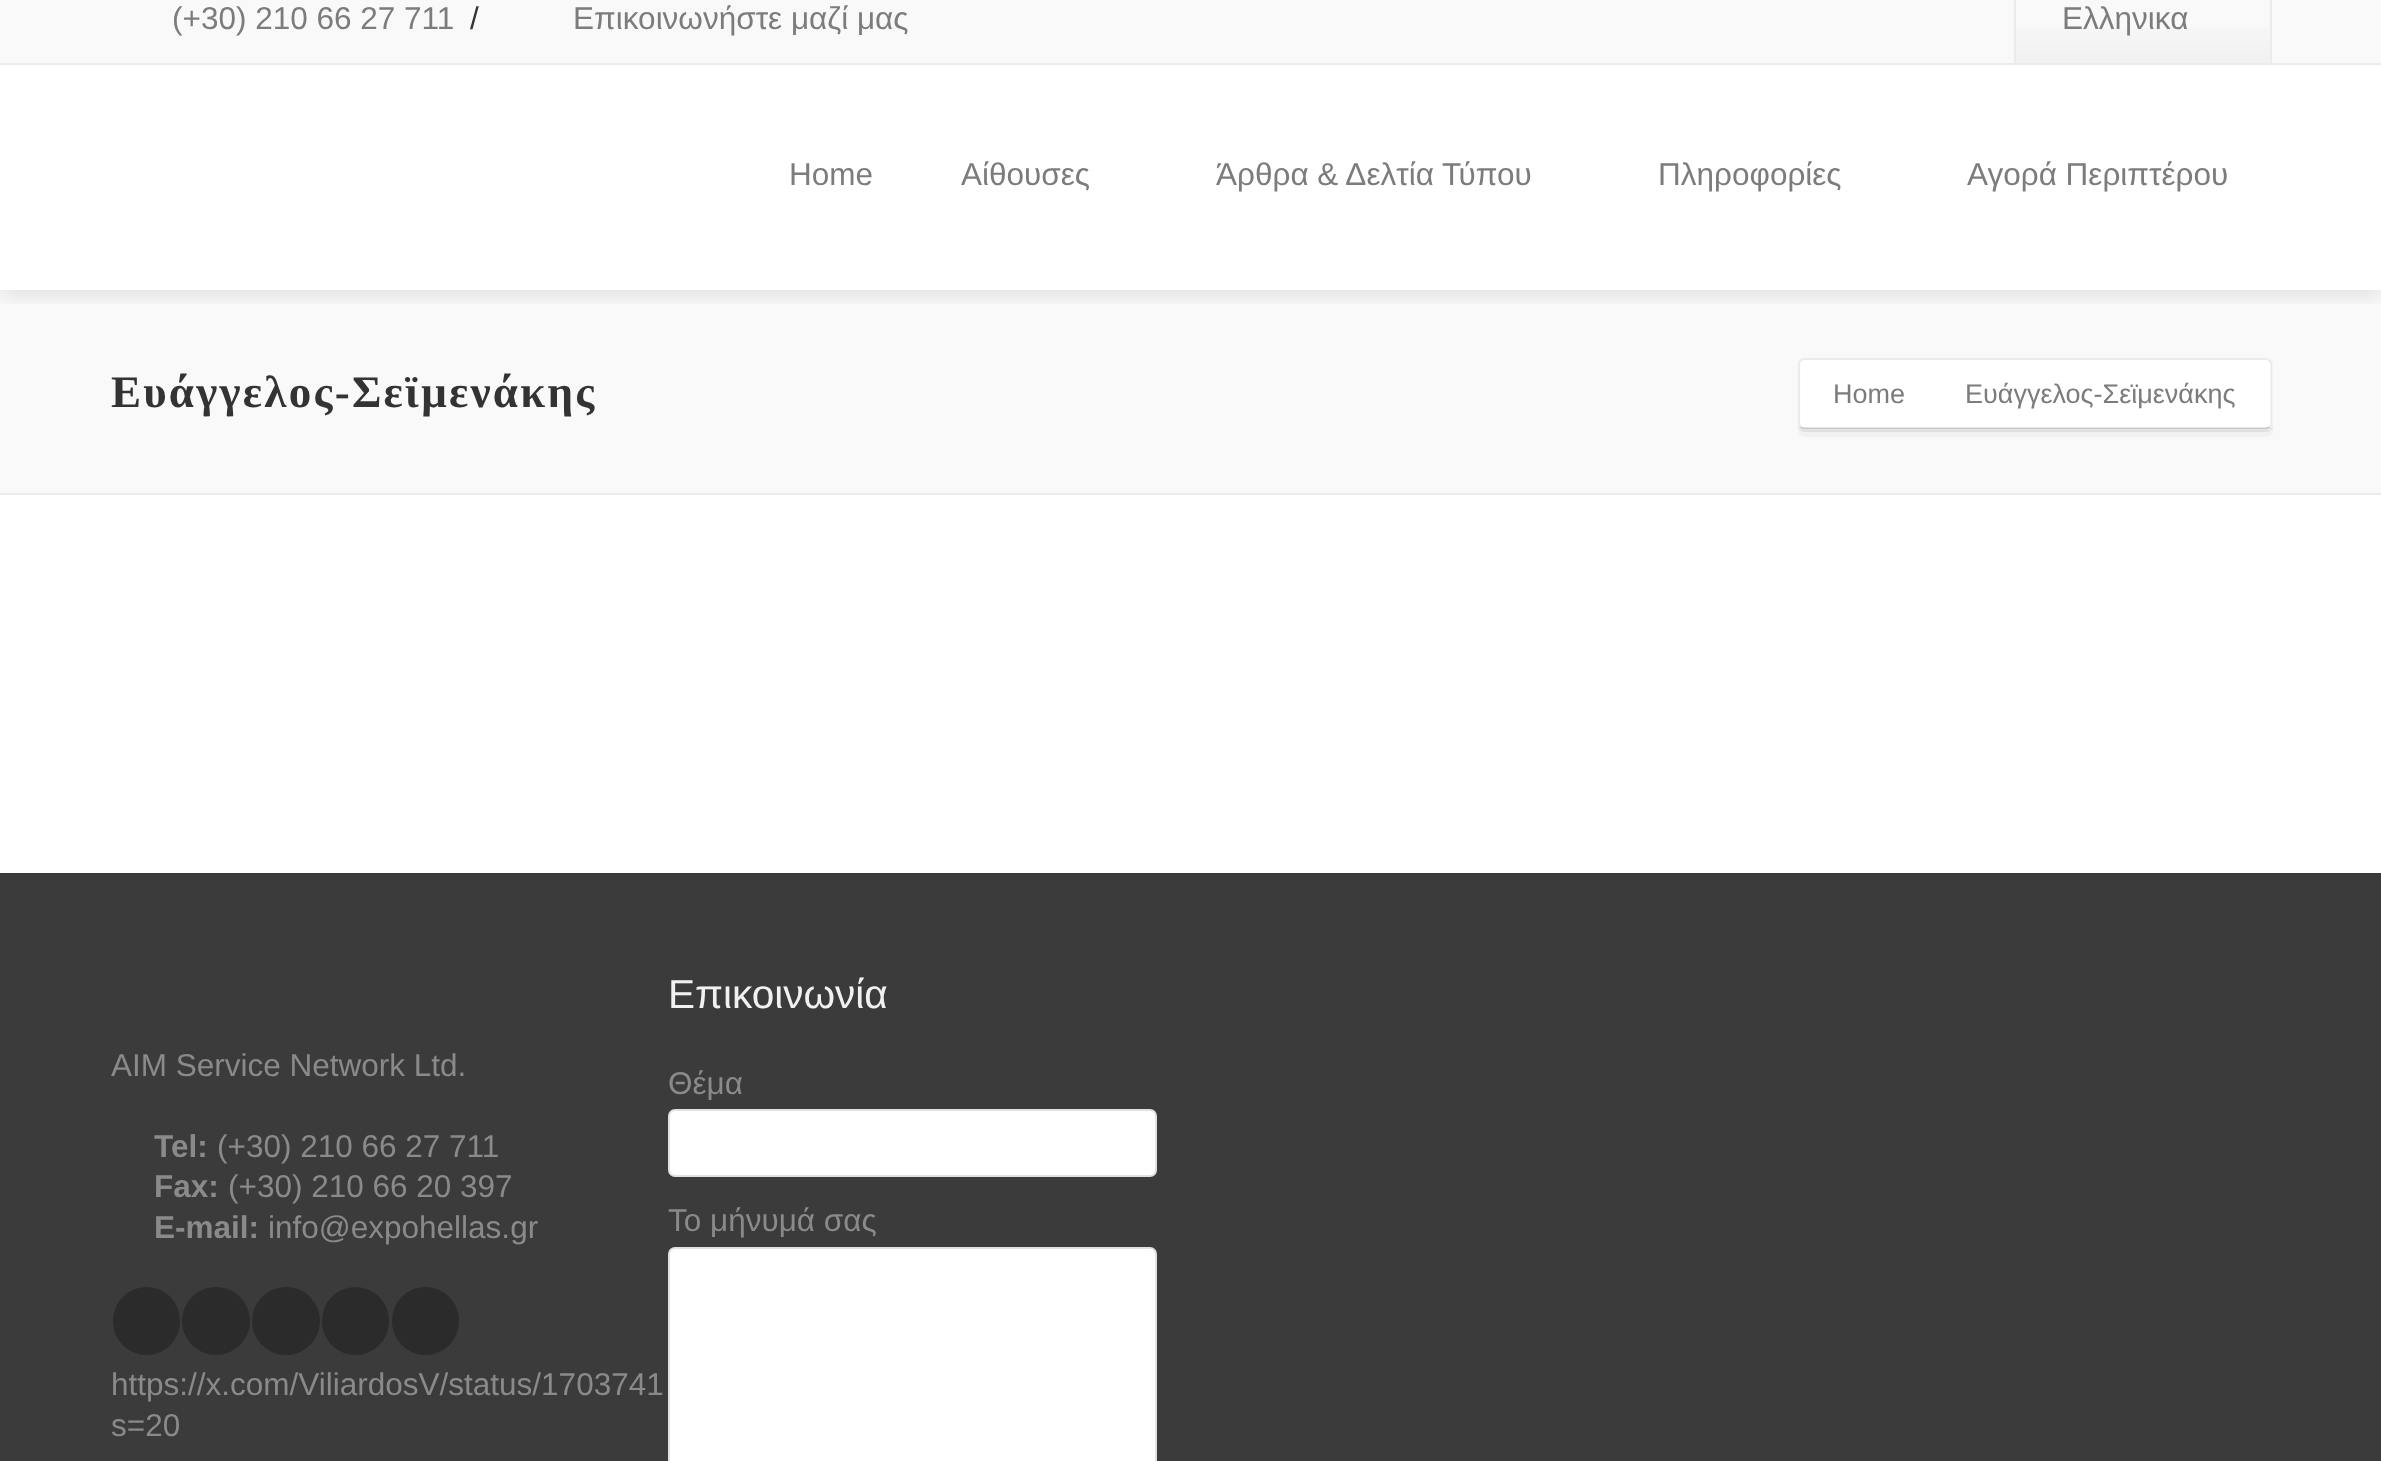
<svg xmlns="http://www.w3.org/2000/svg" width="2381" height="1461">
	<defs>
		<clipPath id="clip1"><rect x="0" y="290" width="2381" height="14" /></clipPath>
		<linearGradient id="g1" gradientUnits="userSpaceOnUse" x1="2143" y1="-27" x2="2143" y2="63"><stop offset="0" stop-color="#FFFFFF" /><stop offset="1" stop-color="#F1F1F1" /></linearGradient>
	</defs>
	<rect width="100%" height="100%" fill="#FFFFFF" />
	<rect x="0" y="290" width="2381" height="203" fill="#F9F9F9" />
	<g clip-path="url(#clip1)">
		<rect x="0" y="-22" width="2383" height="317" fill="#000000" fill-opacity="0.1" filter="blur(11px)" />
	</g>
	<rect x="0" y="0" width="2381" height="63" fill="#F9F9F9" />
	<rect x="0" y="63" width="2381" height="2" fill="#EBEBEB" />
	<text x="172" y="29" font-family="Liberation Sans" font-size="31.5" fill="#7C7C7C">(+30) 210 66 27 711</text>
	<text x="470" y="29" font-family="Liberation Sans" font-size="31.5" fill="#333333">/</text>
	<text x="573" y="29" font-family="Liberation Sans" font-size="31.5" fill="#7C7C7C">Επικοινωνήστε μαζί μας</text>
	<rect x="2270" y="0" width="2" height="63" fill="#EBEBEB" />
	<rect x="2014" y="0" width="2" height="63" fill="#EBEBEB" />
	<rect x="2016" y="28" width="254" height="35" fill="url(#g1)" />
	<g font-family="Liberation Sans" font-size="31.5" fill="#7C7C7C">
		<text x="2062" y="29">Ελληνικα</text>
		<text x="789" y="185">Home</text>
		<text x="961" y="185">Αίθουσες</text>
		<text x="1216" y="185">Άρθρα &amp; Δελτία Τύπου</text>
		<text x="1658" y="185">Πληροφορίες</text>
		<text x="1967" y="185">Αγορά Περιπτέρου</text>
	</g>
	<rect x="0" y="493" width="2381" height="2" fill="#EBEBEB" />
	<text x="111" y="407" font-family="Liberation Serif" font-size="45" font-weight="700" letter-spacing="2.25" fill="#333333">Ευάγγελος-Σεϊμενάκης</text>
	<path d="M1798 425C1798 429 1801 432 1805 432H2266C2270 432 2273 429 2273 425V367L2272 364V423C2272 427 2269 430 2266 430H1804C1801 430 1799 428 1798 425Z" fill="#E8E8E8" />
	<path d="M1798 425V430C1798 434 1801 437 1805 437H2266C2270 437 2273 434 2273 430V372L2272 369V423C2272 427 2269 430 2266 430H1804C1801 430 1799 428 1798 425Z" fill="#000000" fill-opacity="0.03" />
	<rect x="1798" y="358" width="475" height="72" rx="7" fill="#FFFFFF" />
	<path d="M2269.5 427C2268.5 428 2267 428.5 2266 428.5H1804.5C1803 428.5 1801.5 428 1800.5 427" fill="none" stroke="#C7C7C7" stroke-width="2.2" />
	<path d="M1800.5 427C1799.5 426 1799 424.5 1799 423V364.5C1799 363 1799.5 361.5 1800.5 360.5C1801.5 359.5 1803 359 1804.5 359H2266C2267 359 2268.5 359.5 2269.5 360.5C2271 361.5 2271.5 363 2271.5 364.5V423C2271.5 424.5 2271 426 2269.5 427" fill="none" stroke="#EBEBEB" stroke-width="2.2" />
	<g font-family="Liberation Sans" font-size="27" fill="#7C7C7C">
		<text x="1833" y="403">Home</text>
		<text x="1965" y="403">Ευάγγελος-Σεϊμενάκης</text>
	</g>
	<rect x="0" y="873" width="2381" height="588" fill="#3B3B3B" />
	<text x="111" y="1076" font-family="Liberation Sans" font-size="31.5" fill="#8C8989">AIM Service Network Ltd.</text>
	<text x="154" y="1157" font-family="Liberation Sans" font-size="31.5" font-weight="700" fill="#8C8989">Tel:</text>
	<text x="217" y="1157" font-family="Liberation Sans" font-size="31.5" fill="#8C8989">(+30) 210 66 27 711</text>
	<text x="154" y="1197" font-family="Liberation Sans" font-size="31.5" font-weight="700" fill="#8C8989">Fax:</text>
	<text x="228" y="1197" font-family="Liberation Sans" font-size="31.5" fill="#8C8989">(+30) 210 66 20 397</text>
	<text x="154" y="1238" font-family="Liberation Sans" font-size="31.5" font-weight="700" fill="#8C8989">E-mail:</text>
	<text x="268" y="1238" font-family="Liberation Sans" font-size="31.5" fill="#8C8989">info@expohellas.gr</text>
	<rect x="113" y="1287" width="67" height="68" rx="33.5" fill="#2B2B2B" />
	<circle cx="216" cy="1321" r="34" fill="#2B2B2B" />
	<circle cx="286" cy="1321" r="34" fill="#2B2B2B" />
	<rect x="322" y="1287" width="67" height="68" rx="33.5" fill="#2B2B2B" />
	<rect x="392" y="1287" width="67" height="68" rx="33.5" fill="#2B2B2B" />
	<g font-family="Liberation Sans" font-size="31.5" fill="#8C8989">
		<text x="111" y="1395">https://x.com/ViliardosV/status/1703741</text>
		<text x="111" y="1436">s=20</text>
	</g>
	<text x="668" y="1008" font-family="Liberation Sans" font-size="40.5" fill="#F1F1F1">Επικοινωνία</text>
	<text x="668" y="1094" font-family="Liberation Sans" font-size="31.5" fill="#8C8989">Θέμα</text>
	<rect x="669" y="1110" width="487" height="66" rx="6" fill="#FFFFFF" stroke="#E1E1E1" stroke-width="2" />
	<text x="668" y="1231" font-family="Liberation Sans" font-size="31.5" fill="#8C8989">Το μήνυμά σας</text>
	<rect x="669" y="1248" width="487" height="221" rx="6" fill="#FFFFFF" stroke="#E1E1E1" stroke-width="2" />
</svg>
